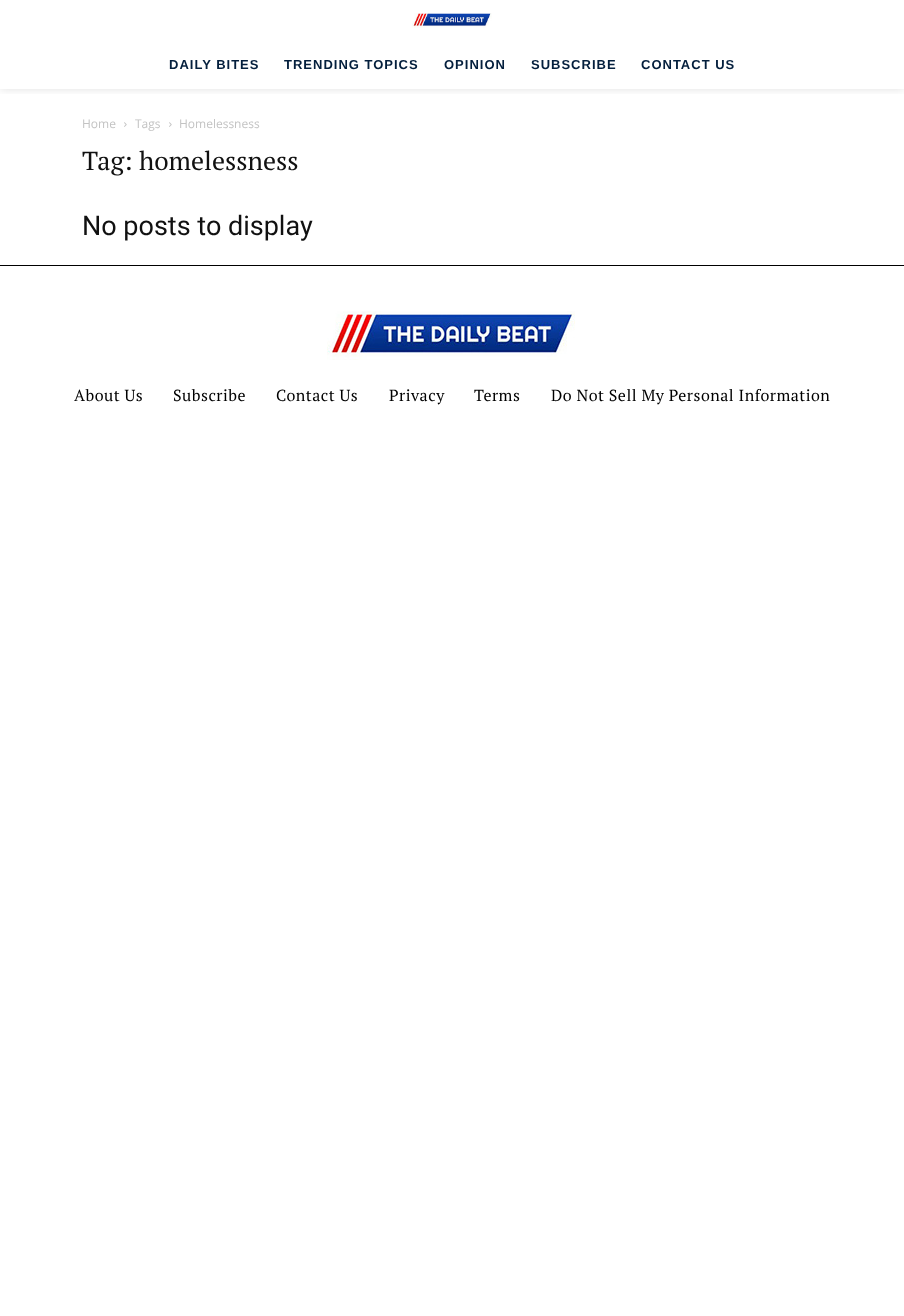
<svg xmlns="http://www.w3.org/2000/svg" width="904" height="1316">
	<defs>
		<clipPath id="clip1"><rect x="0" y="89" width="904" height="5" /></clipPath>
	</defs>
	<rect width="100%" height="100%" fill="#FFFFFF" />
	<g clip-path="url(#clip1)">
		<rect x="0" y="0" width="904" height="89" fill="#000000" fill-opacity="0.12" filter="blur(5px)" />
	</g>
	<image x="412" y="13" width="80" height="15" href="assets/img1.png" />
	<g font-family="Liberation Sans" font-size="13" font-weight="700" letter-spacing="1" fill="#041F3D">
		<text x="169" y="69">DAILY BITES</text>
		<text x="284" y="69">TRENDING TOPICS</text>
		<text x="444" y="69">OPINION</text>
		<text x="531" y="69">SUBSCRIBE</text>
		<text x="641" y="69">CONTACT US</text>
	</g>
	<text x="82" y="128" font-family="Open Sans" font-size="12" fill="#C3C3C3">Home</text>
	<image x="124" y="122" width="3" height="5" href="assets/img2.png" />
	<text x="135" y="128" font-family="Open Sans" font-size="12" fill="#C3C3C3">Tags</text>
	<image x="169" y="122" width="3" height="5" href="assets/img2.png" />
	<text x="179" y="128" font-family="Open Sans" font-size="12" fill="#C3C3C3">Homelessness</text>
	<text x="82" y="170" font-family="PT Serif" font-size="26" fill="#111111">Tag: homelessness</text>
	<text x="82" y="235" font-family="Roboto" font-size="27" fill="#111111">No posts to display</text>
	<rect x="0" y="265" width="904" height="1" fill="#000000" />
	<image x="327" y="311" width="248" height="49" href="assets/img3.png" />
	<g font-family="PT Serif" font-size="16" letter-spacing="0.5" fill="#000000">
		<text x="74" y="401">About Us</text>
		<text x="173" y="401">Subscribe</text>
		<text x="276" y="401">Contact Us</text>
		<text x="389" y="401">Privacy</text>
		<text x="474" y="401">Terms</text>
		<text x="551" y="401">Do Not Sell My Personal Information</text>
	</g>
</svg>
